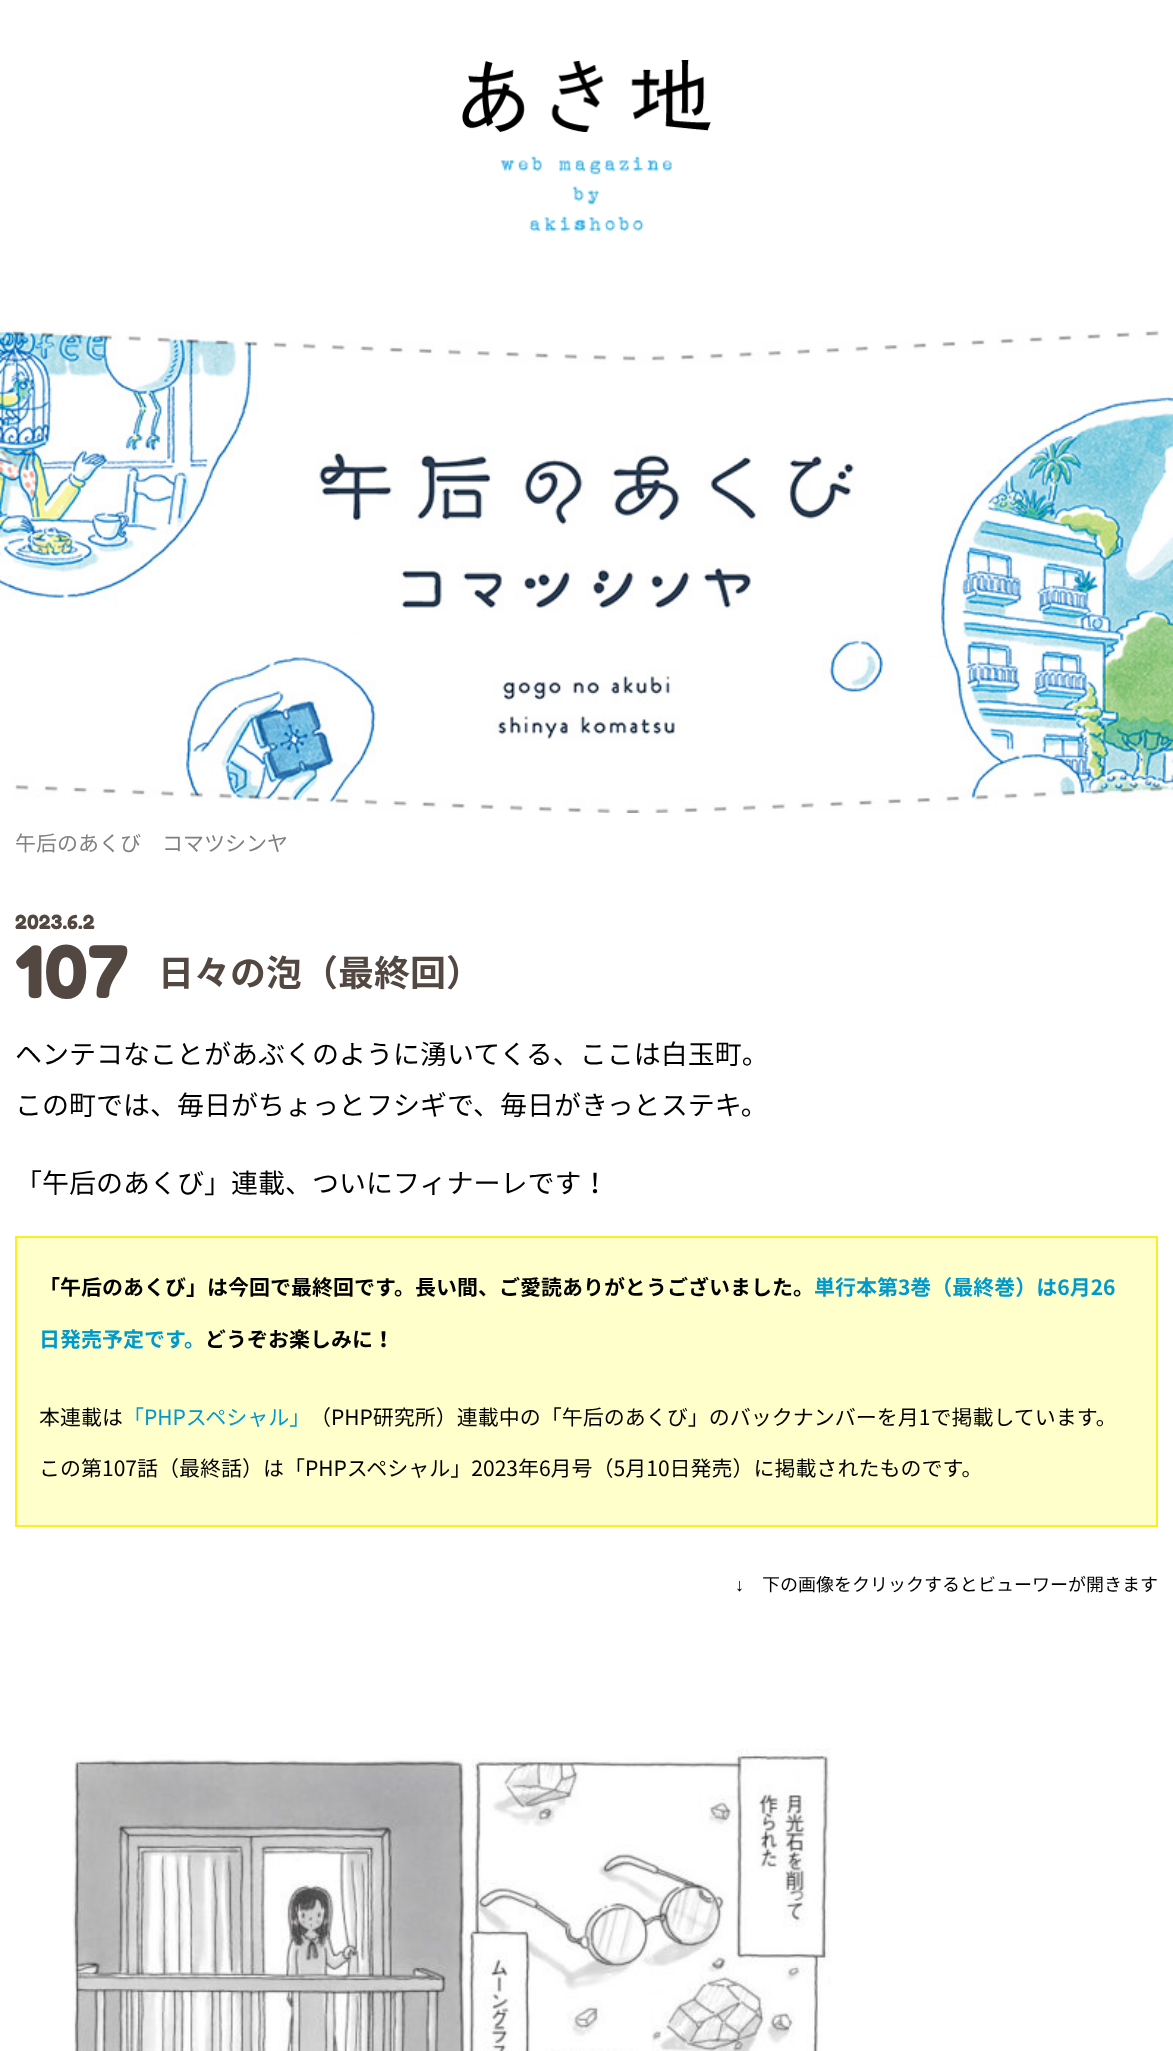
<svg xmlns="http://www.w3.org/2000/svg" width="1173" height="2051">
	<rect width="100%" height="100%" fill="#FFFFFF" />
	<image x="462" y="60" width="249" height="72" href="assets/img1.png" />
	<image x="501" y="156" width="171" height="75" href="assets/img2.png" />
	<image x="0" y="329" width="1173" height="484" href="assets/img3.png" />
	<text x="15" y="851" font-family="Noto Sans JP" font-size="21" fill="#808080">午后のあくび　コマツシンヤ</text>
	<text x="15" y="929" font-family="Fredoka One" font-size="19.5" fill="#534741">2023.6.2</text>
	<text x="15" y="998" font-family="Fredoka One" font-size="72" fill="#534741">107</text>
	<text x="158" y="986" font-family="Noto Sans JP" font-size="36" font-weight="700" fill="#534741">日々の泡（最終回）</text>
	<g font-family="Noto Sans JP" font-size="27" fill="#000000">
		<text x="15" y="1064">ヘンテコなことがあぶくのように湧いてくる、ここは白玉町。</text>
		<text x="15" y="1115">この町では、毎日がちょっとフシギで、毎日がきっとステキ。</text>
		<text x="15" y="1193">「午后のあくび」連載、ついにフィナーレです！</text>
	</g>
	<rect x="16" y="1237" width="1141" height="289" fill="#FFFFCC" stroke="#FDEE21" stroke-width="2" />
	<text x="39" y="1295" font-family="Noto Sans JP" font-size="21" font-weight="700" fill="#000000">「午后のあくび」は今回で最終回です。長い間、ご愛読ありがとうございました。</text>
	<g font-family="Noto Sans JP" font-size="21" font-weight="700" fill="#0099CC">
		<text x="814" y="1295">単行本第3巻（最終巻）は6月26</text>
		<text x="39" y="1347">日発売予定です。</text>
	</g>
	<text x="205" y="1347" font-family="Noto Sans JP" font-size="21" font-weight="700" fill="#000000">どうぞお楽しみに！</text>
	<text x="39" y="1425" font-family="Noto Sans JP" font-size="21" fill="#000000">本連載は</text>
	<text x="123" y="1425" font-family="Noto Sans JP" font-size="21" fill="#0099CC">「PHPスペシャル」</text>
	<g font-family="Noto Sans JP" font-size="21" fill="#000000">
		<text x="310" y="1425">（PHP研究所）連載中の「午后のあくび」のバックナンバーを月1で掲載しています。</text>
		<text x="39" y="1476">この第107話（最終話）は「PHPスペシャル」2023年6月号（5月10日発売）に掲載されたものです。</text>
	</g>
	<text x="735" y="1591" font-family="Liberation Sans" font-size="18" fill="#000000">↓</text>
	<text x="762" y="1591" font-family="Noto Sans JP" font-size="18" fill="#000000">下の画像をクリックするとビューワーが開きます</text>
	<image x="72" y="1748" width="759" height="303" href="assets/img4.png" />
</svg>
